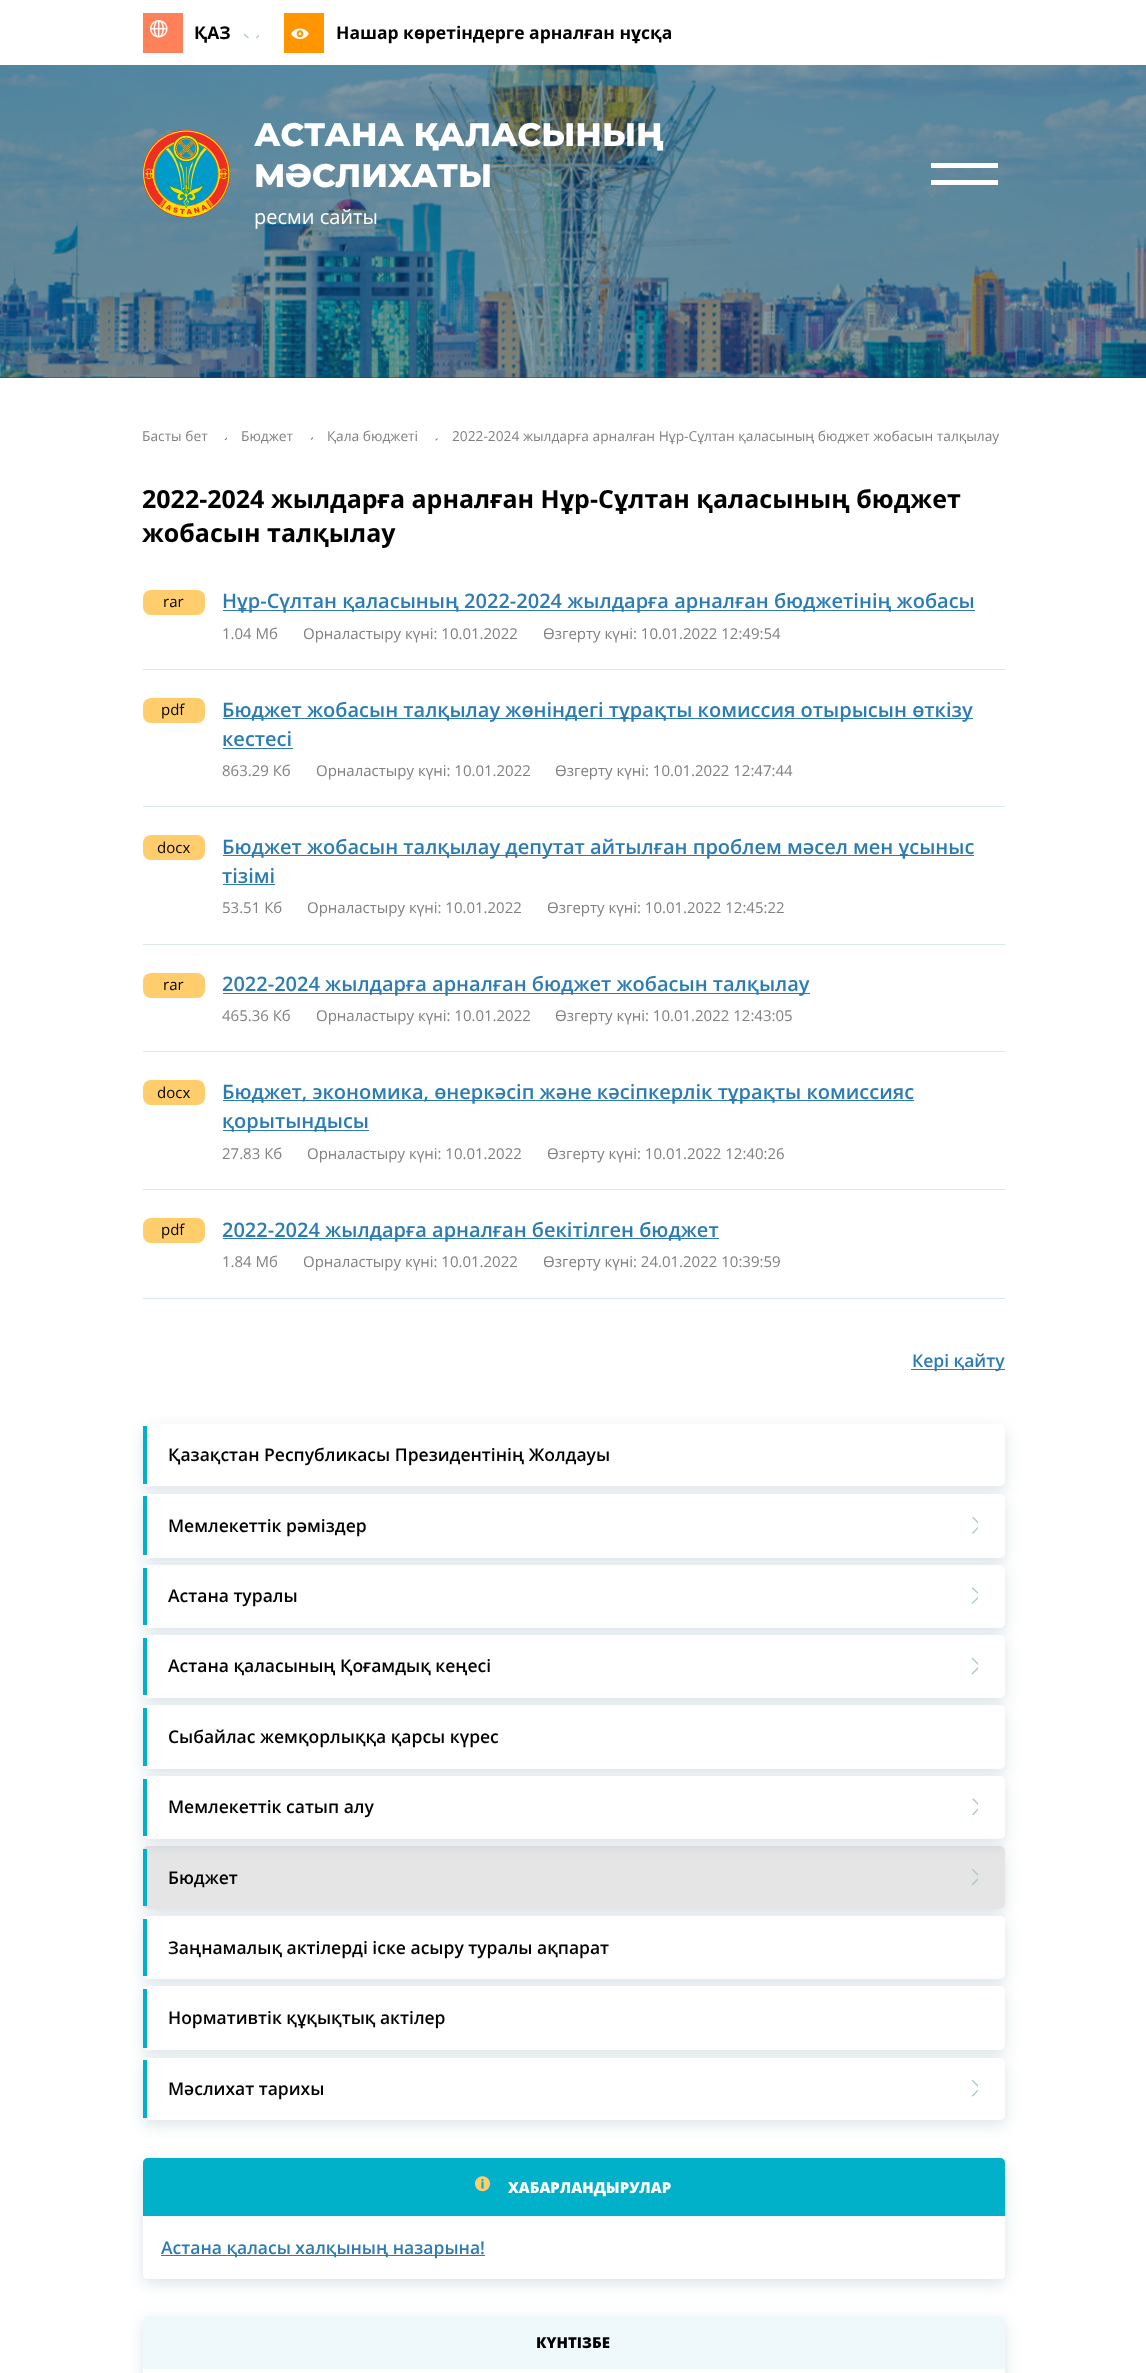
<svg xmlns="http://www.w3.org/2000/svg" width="1146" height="2373">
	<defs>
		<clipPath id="clip1"><rect x="244" y="30" width="15" height="8" /></clipPath>
		<clipPath id="clip2"><path d="M222 440.5V431.5H227V440.5Z" /></clipPath>
		<clipPath id="clip3"><path d="M308 440V431H313V440Z" /></clipPath>
		<clipPath id="clip4"><path d="M432.5 440.5V431.5H437.5V440.5Z" /></clipPath>
		<clipPath id="clip5"><path d="M968 1534.5V1517H978V1534.5Z" /></clipPath>
		<clipPath id="clip6"><path d="M968 1605V1587.5H978V1605Z" /></clipPath>
		<clipPath id="clip7"><path d="M968 1674.5V1657H978V1674.5Z" /></clipPath>
		<clipPath id="clip8"><path d="M968 1816V1798.5H978V1816Z" /></clipPath>
		<clipPath id="clip9"><path d="M968.5 1815.5V1798H978.5V1815.5Z" /></clipPath>
		<clipPath id="clip10"><path d="M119 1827H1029V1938H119ZM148 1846H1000C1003 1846 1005 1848 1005 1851V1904C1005 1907 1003 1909 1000 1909H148C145 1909 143 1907 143 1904V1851C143 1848 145 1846 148 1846Z" clip-rule="evenodd" /></clipPath>
		<clipPath id="clip11"><path d="M968 1886V1869H978V1886Z" /></clipPath>
		<clipPath id="clip12"><path d="M968 1885.5V1868H978V1885.5Z" /></clipPath>
		<clipPath id="clip13"><path d="M968 2097.5V2080H978V2097.5Z" /></clipPath>
		<clipPath id="clip14"><path d="M968.5 2096.5V2079H978.5V2096.5Z" /></clipPath>
		<clipPath id="clip15"><path d="M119 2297H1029V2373H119ZM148 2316H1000C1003 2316 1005 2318 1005 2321V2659C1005 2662 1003 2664 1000 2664H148C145 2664 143 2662 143 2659V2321C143 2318 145 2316 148 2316Z" clip-rule="evenodd" /></clipPath>
	</defs>
	<rect width="100%" height="100%" fill="#FFFFFF" />
	<rect x="143" y="13" width="40" height="40" fill="#FF815A" />
	<image x="150" y="20" width="18" height="18" href="assets/img1.png" />
	<text x="194" y="39" font-family="Open Sans" font-size="17.5" font-weight="700" fill="#000000">ҚАЗ</text>
	<g clip-path="url(#clip1)">
		<path d="M244 34L252.5 42L260.5 34" fill="none" stroke="#A7C7CD" stroke-width="1.3" />
	</g>
	<rect x="284" y="13" width="40" height="40" fill="#FF9600" />
	<image x="291" y="28" width="18" height="11" href="assets/img2.png" />
	<text x="336" y="39" font-family="Open Sans" font-size="17.5" font-weight="700" fill="#000000">Нашар көретіндерге арналған нұсқа</text>
	<rect x="0" y="377" width="1146" height="1" fill="#0F466D" />
	<image x="0" y="65" width="1146" height="313" href="assets/img3.png" />
	<image x="143" y="130" width="87" height="88" href="assets/img4.png" />
	<g font-family="Montserrat" font-size="32.5" font-weight="800" fill="#FFFFFF">
		<text x="254" y="146">АСТАНА ҚАЛАСЫНЫҢ</text>
		<text x="254" y="187">МӘСЛИХАТЫ</text>
	</g>
	<text x="254" y="224" font-family="Open Sans" font-size="20" fill="#FFFFFF">ресми сайты</text>
	<rect x="931" y="163" width="67" height="5" fill="#FFFFFF" />
	<rect x="931" y="180" width="67" height="5" fill="#FFFFFF" />
	<text x="142" y="441" font-family="Open Sans" font-size="13.75" fill="#808080">Басты бет</text>
	<g clip-path="url(#clip2)">
		<path d="M225 440L231.5 433.5L225 427.5" fill="none" stroke="#808080" stroke-width="1.1" />
	</g>
	<text x="241" y="441" font-family="Open Sans" font-size="13.75" fill="#808080">Бюджет</text>
	<g clip-path="url(#clip3)">
		<path d="M311 439.5L317 433.5L311 427" fill="none" stroke="#808080" stroke-width="1.1" />
	</g>
	<text x="327" y="441" font-family="Open Sans" font-size="13.75" fill="#808080">Қала бюджеті</text>
	<g clip-path="url(#clip4)">
		<path d="M435.5 440.5L442 434.5L435.5 428" fill="none" stroke="#808080" stroke-width="1.1" />
	</g>
	<text x="452" y="441" font-family="Open Sans" font-size="13.75" fill="#808080">2022-2024 жылдарға арналған Нұр-Сұлтан қаласының бюджет жобасын талқылау</text>
	<g font-family="Open Sans" font-size="25" font-weight="700" fill="#000000">
		<text x="142" y="508">2022-2024 жылдарға арналған Нұр-Сұлтан қаласының бюджет</text>
		<text x="142" y="542">жобасын талқылау</text>
	</g>
	<rect x="143" y="669" width="862" height="1" fill="#D9E9EC" />
	<rect x="143" y="590" width="62" height="25" rx="8" fill="#FFCD6B" />
	<text x="163" y="607" font-family="Open Sans" font-size="15" fill="#000000">rar</text>
	<rect x="223" y="610" width="752" height="1" fill="#2C7CB3" />
	<text x="222" y="608" font-family="Open Sans" font-size="20" font-weight="600" fill="#2C7CB3">Нұр-Сүлтан қаласының 2022-2024 жылдарға арналған бюджетінің жобасы</text>
	<g font-family="Open Sans" font-size="15" fill="#808080">
		<text x="222" y="639">1.04 Мб</text>
		<text x="303" y="639">Орналастыру күні: 10.01.2022</text>
		<text x="543" y="639">Өзгерту күні: 10.01.2022 12:49:54</text>
	</g>
	<rect x="143" y="806" width="862" height="1" fill="#D9E9EC" />
	<rect x="143" y="698" width="62" height="25" rx="8" fill="#FFCD6B" />
	<text x="161" y="715" font-family="Open Sans" font-size="15" fill="#000000">pdf</text>
	<rect x="223" y="718" width="750" height="1" fill="#2C7CB3" />
	<g font-family="Open Sans" font-size="20" font-weight="600" fill="#2C7CB3">
		<text x="222" y="717">Бюджет жобасын талқылау жөніндегі тұрақты комиссия отырысын өткізу</text>
		<text x="222" y="746">кестесі</text>
	</g>
	<rect x="223" y="748" width="70" height="1" fill="#2C7CB3" />
	<g font-family="Open Sans" font-size="15" fill="#808080">
		<text x="222" y="776">863.29 Кб</text>
		<text x="316" y="776">Орналастыру күні: 10.01.2022</text>
		<text x="555" y="776">Өзгерту күні: 10.01.2022 12:47:44</text>
	</g>
	<rect x="143" y="944" width="862" height="1" fill="#D9E9EC" />
	<rect x="143" y="835" width="62" height="25" rx="8" fill="#FFCD6B" />
	<text x="157" y="853" font-family="Open Sans" font-size="15" fill="#000000">docx</text>
	<rect x="223" y="855" width="751" height="1" fill="#2C7CB3" />
	<g font-family="Open Sans" font-size="20" font-weight="600" fill="#2C7CB3">
		<text x="222" y="854">Бюджет жобасын талқылау депутат айтылған проблем мәсел мен ұсыныс</text>
		<text x="222" y="883">тізімі</text>
	</g>
	<rect x="223" y="884" width="52" height="1" fill="#2C7CB3" />
	<g font-family="Open Sans" font-size="15" fill="#808080">
		<text x="222" y="913">53.51 Кб</text>
		<text x="307" y="913">Орналастыру күні: 10.01.2022</text>
		<text x="547" y="913">Өзгерту күні: 10.01.2022 12:45:22</text>
	</g>
	<rect x="143" y="1051" width="862" height="1" fill="#D9E9EC" />
	<rect x="143" y="973" width="62" height="25" rx="8" fill="#FFCD6B" />
	<text x="163" y="990" font-family="Open Sans" font-size="15" fill="#000000">rar</text>
	<rect x="223" y="993" width="587" height="1" fill="#2C7CB3" />
	<text x="222" y="991" font-family="Open Sans" font-size="20" font-weight="600" fill="#2C7CB3">2022-2024 жылдарға арналған бюджет жобасын талқылау</text>
	<g font-family="Open Sans" font-size="15" fill="#808080">
		<text x="222" y="1021">465.36 Кб</text>
		<text x="316" y="1021">Орналастыру күні: 10.01.2022</text>
		<text x="555" y="1021">Өзгерту күні: 10.01.2022 12:43:05</text>
	</g>
	<rect x="143" y="1189" width="862" height="1" fill="#D9E9EC" />
	<rect x="143" y="1080" width="62" height="25" rx="8" fill="#FFCD6B" />
	<text x="157" y="1098" font-family="Open Sans" font-size="15" fill="#000000">docx</text>
	<rect x="223" y="1100" width="691" height="1" fill="#2C7CB3" />
	<text x="222" y="1099" font-family="Open Sans" font-size="20" font-weight="600" fill="#2C7CB3">Бюджет, экономика, өнеркәсіп және кәсіпкерлік тұрақты комиссияс</text>
	<rect x="223" y="1130" width="146" height="1" fill="#2C7CB3" />
	<text x="222" y="1128" font-family="Open Sans" font-size="20" font-weight="600" fill="#2C7CB3">қорытындысы</text>
	<g font-family="Open Sans" font-size="15" fill="#808080">
		<text x="222" y="1159">27.83 Кб</text>
		<text x="307" y="1159">Орналастыру күні: 10.01.2022</text>
		<text x="547" y="1159">Өзгерту күні: 10.01.2022 12:40:26</text>
	</g>
	<rect x="143" y="1298" width="862" height="1" fill="#D9E9EC" />
	<rect x="143" y="1218" width="62" height="25" rx="8" fill="#FFCD6B" />
	<text x="161" y="1235" font-family="Open Sans" font-size="15" fill="#000000">pdf</text>
	<rect x="223" y="1238" width="496" height="1" fill="#2C7CB3" />
	<text x="222" y="1237" font-family="Open Sans" font-size="20" font-weight="600" fill="#2C7CB3">2022-2024 жылдарға арналған бекітілген бюджет</text>
	<g font-family="Open Sans" font-size="15" fill="#808080">
		<text x="222" y="1267">1.84 Мб</text>
		<text x="303" y="1267">Орналастыру күні: 10.01.2022</text>
		<text x="543" y="1267">Өзгерту күні: 24.01.2022 10:39:59</text>
	</g>
	<rect x="911" y="1369" width="94" height="1" fill="#2C7CB3" />
	<text x="912" y="1367" font-family="Open Sans" font-size="17.5" font-weight="600" fill="#2C7CB3">Кері қайту</text>
	<rect x="143" y="1429" width="862" height="62" rx="5" fill="#547893" fill-opacity="0.2" filter="blur(7.5px)" />
	<rect x="143" y="1424" width="862" height="62" rx="5" fill="#FFFFFF" />
	<rect x="143" y="1426" width="4" height="58" fill="#00B1C9" />
	<text x="168" y="1461" font-family="Open Sans" font-size="17.5" font-weight="600" fill="#000000">Қазақстан Республикасы Президентінің Жолдауы</text>
	<rect x="143" y="1499" width="862" height="64" rx="5" fill="#547893" fill-opacity="0.2" filter="blur(7.5px)" />
	<rect x="143" y="1494" width="862" height="64" rx="5" fill="#FFFFFF" />
	<rect x="143" y="1496" width="4" height="59" fill="#00B1C9" />
	<text x="168" y="1532" font-family="Open Sans" font-size="17.5" font-weight="600" fill="#000000">Мемлекеттік рәміздер</text>
	<g clip-path="url(#clip5)">
		<path d="M972.5 1533.5L980.5 1525L972.5 1517" fill="none" stroke="#A7C7CD" stroke-width="1.3" />
	</g>
	<rect x="143" y="1570" width="862" height="63" rx="5" fill="#547893" fill-opacity="0.2" filter="blur(7.5px)" />
	<rect x="143" y="1565" width="862" height="63" rx="5" fill="#FFFFFF" />
	<rect x="143" y="1568" width="4" height="57" fill="#00B1C9" />
	<text x="168" y="1602" font-family="Open Sans" font-size="17.5" font-weight="600" fill="#000000">Астана туралы</text>
	<g clip-path="url(#clip6)">
		<path d="M972 1603.5L980.5 1595.5L972 1587.5" fill="none" stroke="#A7C7CD" stroke-width="1.3" />
	</g>
	<rect x="143" y="1640" width="862" height="63" rx="5" fill="#547893" fill-opacity="0.2" filter="blur(7.5px)" />
	<rect x="143" y="1635" width="862" height="63" rx="5" fill="#FFFFFF" />
	<rect x="143" y="1638" width="4" height="57" fill="#00B1C9" />
	<text x="168" y="1672" font-family="Open Sans" font-size="17.5" font-weight="600" fill="#000000">Астана қаласының Қоғамдық кеңесі</text>
	<g clip-path="url(#clip7)">
		<path d="M972 1674L980 1666L972 1658" fill="none" stroke="#A7C7CD" stroke-width="1.3" />
	</g>
	<rect x="143" y="1710" width="862" height="64" rx="5" fill="#547893" fill-opacity="0.2" filter="blur(7.5px)" />
	<rect x="143" y="1705" width="862" height="64" rx="5" fill="#FFFFFF" />
	<rect x="143" y="1708" width="4" height="58" fill="#00B1C9" />
	<text x="168" y="1743" font-family="Open Sans" font-size="17.5" font-weight="600" fill="#000000">Сыбайлас жемқорлыққа қарсы күрес</text>
	<rect x="143" y="1781" width="862" height="63" rx="5" fill="#547893" fill-opacity="0.2" filter="blur(7.5px)" />
	<rect x="143" y="1776" width="862" height="63" rx="5" fill="#FFFFFF" />
	<rect x="143" y="1779" width="4" height="57" fill="#00B1C9" />
	<text x="168" y="1813" font-family="Open Sans" font-size="17.5" font-weight="600" fill="#000000">Мемлекеттік сатып алу</text>
	<g clip-path="url(#clip8)">
		<g clip-path="url(#clip9)">
			<path d="M972.5 1815L980.5 1806.5L972.5 1798.5" fill="none" stroke="#A7C7CD" stroke-width="1.3" />
		</g>
	</g>
	<g clip-path="url(#clip10)">
		<rect x="143" y="1851" width="862" height="63" rx="5" fill="#547893" fill-opacity="0.2" filter="blur(7.5px)" />
	</g>
	<rect x="143" y="1846" width="862" height="63" rx="5" fill="#000000" fill-opacity="0.1" />
	<rect x="143" y="1849" width="4" height="57" fill="#00B1C9" />
	<text x="168" y="1884" font-family="Open Sans" font-size="17.5" font-weight="600" fill="#000000">Бюджет</text>
	<g clip-path="url(#clip11)">
		<g clip-path="url(#clip12)">
			<path d="M972 1885L980 1877L972 1869" fill="none" stroke="#A7C7CD" stroke-width="1.3" />
		</g>
	</g>
	<rect x="143" y="1921" width="862" height="63" rx="5" fill="#547893" fill-opacity="0.2" filter="blur(7.5px)" />
	<rect x="143" y="1916" width="862" height="63" rx="5" fill="#FFFFFF" />
	<rect x="143" y="1919" width="4" height="57" fill="#00B1C9" />
	<text x="168" y="1954" font-family="Open Sans" font-size="17.5" font-weight="600" fill="#000000">Заңнамалық актілерді іске асыру туралы ақпарат</text>
	<rect x="143" y="1991" width="862" height="64" rx="5" fill="#547893" fill-opacity="0.2" filter="blur(7.5px)" />
	<rect x="143" y="1986" width="862" height="64" rx="5" fill="#FFFFFF" />
	<rect x="143" y="1989" width="4" height="59" fill="#00B1C9" />
	<text x="168" y="2024" font-family="Open Sans" font-size="17.5" font-weight="600" fill="#000000">Нормативтік құқықтық актілер</text>
	<rect x="143" y="2063" width="862" height="62" rx="5" fill="#547893" fill-opacity="0.2" filter="blur(7.5px)" />
	<rect x="143" y="2058" width="862" height="62" rx="5" fill="#FFFFFF" />
	<rect x="143" y="2060" width="4" height="58" fill="#00B1C9" />
	<text x="168" y="2095" font-family="Open Sans" font-size="17.5" font-weight="600" fill="#000000">Мәслихат тарихы</text>
	<g clip-path="url(#clip13)">
		<g clip-path="url(#clip14)">
			<path d="M972 2096.5L980 2088L972 2080" fill="none" stroke="#A7C7CD" stroke-width="1.3" />
		</g>
	</g>
	<rect x="143" y="2163" width="862" height="121" rx="5" fill="#547893" fill-opacity="0.2" filter="blur(7.5px)" />
	<path d="M148 2158H1000C1003 2158 1005 2160 1005 2163V2216H143V2163C143 2160 145 2158 148 2158Z" fill="#00B1C9" />
	<image x="475" y="2176" width="15" height="16" href="assets/img5.png" />
	<text x="508" y="2193" font-family="Open Sans" font-size="15" font-weight="800" fill="#FFFFFF">ХАБАРЛАНДЫРУЛАР</text>
	<path d="M143 2216H1005V2274C1005 2277 1003 2279 1000 2279H148C145 2279 143 2277 143 2274Z" fill="#FFFFFF" />
	<rect x="161" y="2255" width="324" height="1" fill="#2C7CB3" />
	<text x="161" y="2254" font-family="Open Sans" font-size="17.5" font-weight="600" fill="#2C7CB3">Астана қаласы халқының назарына!</text>
	<g clip-path="url(#clip15)">
		<rect x="143" y="2321" width="862" height="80" rx="5" fill="#547893" fill-opacity="0.2" filter="blur(7.5px)" />
	</g>
	<path d="M148 2316H1000C1003 2316 1005 2318 1005 2321V2369H143V2321C143 2318 145 2316 148 2316Z" fill="#EFF9FB" />
	<text x="536" y="2348" font-family="Open Sans" font-size="15" font-weight="800" fill="#000000">КҮНТІЗБЕ</text>
</svg>
